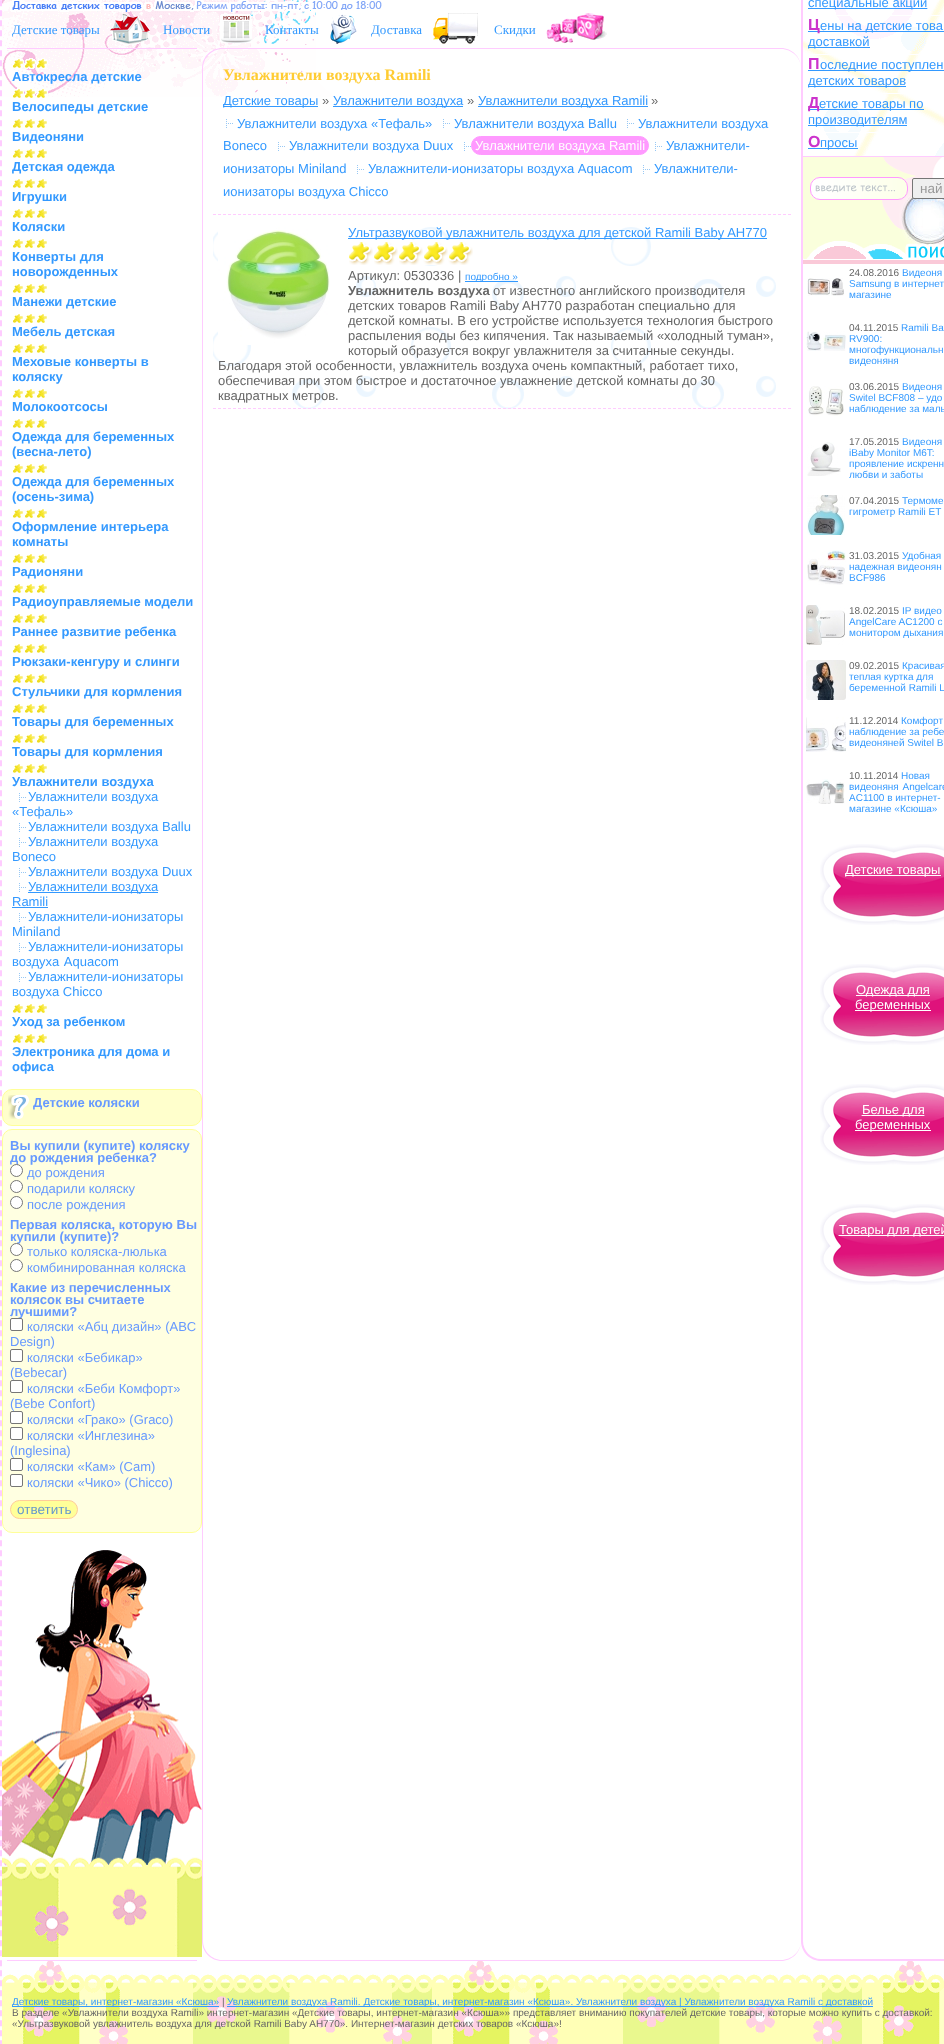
<svg xmlns="http://www.w3.org/2000/svg" width="944" height="2044">
	<rect width="100%" height="100%" fill="#FFFFFF" />
	<image x="2" y="0" width="337" height="97" href="assets/img1.png" />
	<path d="M10-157H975C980-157 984-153 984-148V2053C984 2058 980 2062 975 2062H10C5 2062 1 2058 1 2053V-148C1-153 5-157 10-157Z" fill="none" stroke="#FFCCFF" stroke-width="2" stroke-dasharray="6 4" />
	<path d="M374-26H548V104H374C342 104 316 89 316 72V6C316-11 342-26 374-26Z" fill="#FFFFFF" />
	<image x="10" y="0" width="372" height="12" href="assets/img2.png" />
	<text x="12" y="34" font-family="Liberation Serif" font-size="13" fill="#3399FF">Детские товары</text>
	<image x="110" y="14" width="40" height="30" href="assets/img3.png" />
	<text x="163" y="34" font-family="Liberation Serif" font-size="13" fill="#3399FF">Новости</text>
	<image x="220" y="14" width="32" height="29" href="assets/img4.png" />
	<text x="265" y="34" font-family="Liberation Serif" font-size="13" fill="#3399FF">Контакты</text>
	<image x="330" y="14" width="27" height="30" href="assets/img5.png" />
	<text x="371" y="34" font-family="Liberation Serif" font-size="13" fill="#3399FF">Доставка</text>
	<image x="433" y="13" width="45" height="31" href="assets/img6.png" />
	<text x="494" y="34" font-family="Liberation Serif" font-size="13" fill="#3399FF">Скидки</text>
	<image x="546" y="13" width="61" height="31" href="assets/img7.png" />
	<path d="M811-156H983V1941C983 1952 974 1961 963 1961H821C810 1961 801 1952 801 1941V-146C801-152 805-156 811-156ZM811-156H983V1941C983 1951 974 1959 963 1959H821C811 1959 803 1951 803 1941V-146C803-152 807-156 811-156Z" fill="#FFCCFF" fill-rule="evenodd" />
	<image x="803" y="0" width="141" height="156" href="assets/img8.png" />
	<image x="927" y="8" width="1" height="1" href="assets/img9.png" />
	<rect x="808" y="8" width="119" height="1" fill="#3399FF" />
	<text x="808" y="7" font-family="Liberation Sans" font-size="13" fill="#3399FF">специальные акции</text>
	<rect x="837" y="15" width="107" height="1" fill="#FFFFFF" />
	<rect x="808" y="31" width="136" height="1" fill="#3399FF" />
	<text x="808" y="30" font-family="Liberation Sans" font-size="16" font-weight="700" fill="#CC33CC">Ц</text>
	<text x="820" y="30" font-family="Liberation Sans" font-size="13" fill="#3399FF">ены на детские това</text>
	<rect x="808" y="47" width="62" height="1" fill="#3399FF" />
	<text x="808" y="46" font-family="Liberation Sans" font-size="13" fill="#3399FF">доставкой</text>
	<rect x="803" y="54" width="117" height="1" fill="#FFFFFF" />
	<text x="808" y="69" font-family="Liberation Sans" font-size="16" font-weight="700" fill="#CC33CC">П</text>
	<rect x="808" y="70" width="136" height="1" fill="#3399FF" />
	<text x="820" y="69" font-family="Liberation Sans" font-size="13" fill="#3399FF">оследние поступлен</text>
	<rect x="808" y="86" width="98" height="1" fill="#3399FF" />
	<text x="808" y="85" font-family="Liberation Sans" font-size="13" fill="#3399FF">детских товаров</text>
	<rect x="881" y="93" width="23" height="1" fill="#FFFFFF" />
	<rect x="808" y="109" width="11" height="1" fill="#3399FF" />
	<text x="808" y="108" font-family="Liberation Sans" font-size="16" font-weight="700" fill="#CC33CC">Д</text>
	<rect x="819" y="109" width="105" height="1" fill="#3399FF" />
	<text x="819" y="108" font-family="Liberation Sans" font-size="13" fill="#3399FF">етские товары по</text>
	<rect x="808" y="125" width="99" height="1" fill="#3399FF" />
	<text x="808" y="124" font-family="Liberation Sans" font-size="13" fill="#3399FF">производителям</text>
	<rect x="825" y="132" width="53" height="1" fill="#FFFFFF" />
	<text x="808" y="147" font-family="Liberation Sans" font-size="16" font-weight="700" fill="#CC33CC">О</text>
	<rect x="808" y="148" width="50" height="1" fill="#3399FF" />
	<text x="820" y="147" font-family="Liberation Sans" font-size="13" fill="#3399FF">просы</text>
	<image x="803" y="157" width="141" height="107" href="assets/img10.png" />
	<rect x="803" y="156" width="141" height="1" fill="#FFCCFF" />
	<image x="811" y="177" width="97" height="23" href="assets/img11.png" />
	<rect x="810.5" y="177.5" width="97" height="22" rx="9.5" fill="none" stroke="#FF99FF" />
	<rect x="912.5" y="178.5" width="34" height="20" rx="1.5" fill="#EFEFEF" stroke="#767676" />
	<text x="920" y="193" font-family="Liberation Sans" font-size="13.5" fill="#999999">най</text>
	<text x="849" y="276" font-family="Liberation Sans" font-size="10" fill="#666666">24.08.2016</text>
	<text x="902" y="276" font-family="Liberation Sans" font-size="10" fill="#3399FF">Видеоня</text>
	<image x="807" y="278" width="37" height="18" href="assets/img12.png" />
	<g font-family="Liberation Sans" font-size="10" fill="#3399FF">
		<text x="849" y="287">Samsung в интернет</text>
		<text x="849" y="298">магазине</text>
	</g>
	<text x="849" y="331" font-family="Liberation Sans" font-size="10" fill="#666666">04.11.2015</text>
	<text x="901" y="331" font-family="Liberation Sans" font-size="10" fill="#3399FF">Ramili Ba</text>
	<image x="806" y="331" width="40" height="20" href="assets/img13.png" />
	<g font-family="Liberation Sans" font-size="10" fill="#3399FF">
		<text x="849" y="342">RV900:</text>
		<text x="849" y="353">многофункциональн</text>
		<text x="849" y="364">видеоняня</text>
	</g>
	<image x="808" y="386" width="36" height="30" href="assets/img14.png" />
	<text x="849" y="390" font-family="Liberation Sans" font-size="10" fill="#666666">03.06.2015</text>
	<g font-family="Liberation Sans" font-size="10" fill="#3399FF">
		<text x="902" y="390">Видеоня</text>
		<text x="849" y="401">Switel BCF808 – удо</text>
		<text x="849" y="412">наблюдение за малы</text>
	</g>
	<image x="807" y="442" width="34" height="34" href="assets/img15.png" />
	<text x="849" y="445" font-family="Liberation Sans" font-size="10" fill="#666666">17.05.2015</text>
	<g font-family="Liberation Sans" font-size="10" fill="#3399FF">
		<text x="902" y="445">Видеоня</text>
		<text x="849" y="456">iBaby Monitor M6T:</text>
		<text x="849" y="467">проявление искренн</text>
		<text x="849" y="478">любви и заботы</text>
	</g>
	<image x="807" y="495" width="38" height="40" href="assets/img16.png" />
	<text x="849" y="504" font-family="Liberation Sans" font-size="10" fill="#666666">07.04.2015</text>
	<g font-family="Liberation Sans" font-size="10" fill="#3399FF">
		<text x="902" y="504">Термоме</text>
		<text x="849" y="515">гигрометр Ramili ET</text>
	</g>
	<image x="807" y="550" width="39" height="35" href="assets/img17.png" />
	<text x="849" y="559" font-family="Liberation Sans" font-size="10" fill="#666666">31.03.2015</text>
	<g font-family="Liberation Sans" font-size="10" fill="#3399FF">
		<text x="902" y="559">Удобная</text>
		<text x="849" y="570">надежная видеонян</text>
		<text x="849" y="581">BCF986</text>
	</g>
	<image x="806" y="605" width="39" height="40" href="assets/img18.png" />
	<text x="849" y="614" font-family="Liberation Sans" font-size="10" fill="#666666">18.02.2015</text>
	<g font-family="Liberation Sans" font-size="10" fill="#3399FF">
		<text x="902" y="614">IP видео</text>
		<text x="849" y="625">AngelCare AC1200 с</text>
		<text x="849" y="636">монитором дыхания</text>
	</g>
	<image x="806" y="660" width="40" height="40" href="assets/img19.png" />
	<text x="849" y="669" font-family="Liberation Sans" font-size="10" fill="#666666">09.02.2015</text>
	<g font-family="Liberation Sans" font-size="10" fill="#3399FF">
		<text x="902" y="669">Красивая</text>
		<text x="849" y="680">теплая куртка для</text>
		<text x="849" y="691">беременной Ramili L</text>
	</g>
	<image x="806" y="717" width="40" height="35" href="assets/img20.png" />
	<text x="849" y="724" font-family="Liberation Sans" font-size="10" fill="#666666">11.12.2014</text>
	<g font-family="Liberation Sans" font-size="10" fill="#3399FF">
		<text x="901" y="724">Комфорт</text>
		<text x="849" y="735">наблюдение за ребе</text>
		<text x="849" y="746">видеоняней Switel B</text>
	</g>
	<text x="849" y="779" font-family="Liberation Sans" font-size="10" fill="#666666">10.11.2014</text>
	<text x="901" y="779" font-family="Liberation Sans" font-size="10" fill="#3399FF">Новая</text>
	<image x="806" y="779" width="39" height="25" href="assets/img21.png" />
	<g font-family="Liberation Sans" font-size="10" fill="#3399FF">
		<text x="849" y="790" word-spacing="1">видеоняня Angelcare</text>
		<text x="849" y="801">AC1100 в интернет-</text>
		<text x="849" y="812">магазине «Ксюша»</text>
	</g>
	<image x="820" y="844" width="124" height="81" href="assets/img22.png" />
	<rect x="845" y="875" width="96" height="1" fill="#FFFFFF" />
	<text x="845" y="874" font-family="Liberation Sans" font-size="13" fill="#FFFFFF">Детские товары</text>
	<image x="820" y="964" width="124" height="81" href="assets/img23.png" />
	<rect x="856" y="995" width="74" height="1" fill="#FFFFFF" />
	<text x="856" y="994" font-family="Liberation Sans" font-size="13" fill="#FFFFFF">Одежда для</text>
	<rect x="855" y="1010" width="76" height="1" fill="#FFFFFF" />
	<text x="855" y="1009" font-family="Liberation Sans" font-size="13" fill="#FFFFFF">беременных</text>
	<image x="820" y="1084" width="124" height="81" href="assets/img24.png" />
	<rect x="901" y="1115" width="10" height="1" fill="#FFFFFF" />
	<text x="862" y="1114" font-family="Liberation Sans" font-size="13" fill="#FFFFFF">Белье для</text>
	<rect x="855" y="1130" width="76" height="1" fill="#FFFFFF" />
	<text x="855" y="1129" font-family="Liberation Sans" font-size="13" fill="#FFFFFF">беременных</text>
	<image x="820" y="1204" width="124" height="81" href="assets/img25.png" />
	<rect x="866" y="1235" width="55" height="1" fill="#FFFFFF" />
	<text x="839" y="1234" font-family="Liberation Sans" font-size="13" fill="#FFFFFF">Товары для детей</text>
	<rect x="7" y="48" width="190" height="1" fill="#FFCCFF" />
	<rect x="7" y="1960" width="190" height="1" fill="#FFCCFF" />
	<image x="13" y="58" width="35" height="11" href="assets/img26.png" />
	<text x="12" y="81" font-family="Liberation Sans" font-size="13" font-weight="700" fill="#3399FF">Автокресла детские</text>
	<image x="13" y="88" width="35" height="10" href="assets/img27.png" />
	<text x="12" y="111" font-family="Liberation Sans" font-size="13" font-weight="700" fill="#3399FF">Велосипеды детские</text>
	<image x="13" y="119" width="34" height="9" href="assets/img28.png" />
	<text x="12" y="141" font-family="Liberation Sans" font-size="13" font-weight="700" fill="#3399FF">Видеоняни</text>
	<image x="13" y="149" width="34" height="9" href="assets/img28.png" />
	<text x="12" y="171" font-family="Liberation Sans" font-size="13" font-weight="700" fill="#3399FF">Детская одежда</text>
	<image x="13" y="179" width="34" height="9" href="assets/img28.png" />
	<text x="12" y="201" font-family="Liberation Sans" font-size="13" font-weight="700" fill="#3399FF">Игрушки</text>
	<image x="13" y="209" width="34" height="9" href="assets/img28.png" />
	<text x="12" y="231" font-family="Liberation Sans" font-size="13" font-weight="700" fill="#3399FF">Коляски</text>
	<image x="13" y="239" width="34" height="9" href="assets/img28.png" />
	<g font-family="Liberation Sans" font-size="13" font-weight="700" fill="#3399FF">
		<text x="12" y="261">Конверты для</text>
		<text x="12" y="276">новорожденных</text>
	</g>
	<image x="13" y="284" width="34" height="9" href="assets/img28.png" />
	<text x="12" y="306" font-family="Liberation Sans" font-size="13" font-weight="700" fill="#3399FF">Манежи детские</text>
	<image x="13" y="314" width="34" height="9" href="assets/img28.png" />
	<text x="12" y="336" font-family="Liberation Sans" font-size="13" font-weight="700" fill="#3399FF">Мебель детская</text>
	<image x="13" y="344" width="34" height="9" href="assets/img28.png" />
	<g font-family="Liberation Sans" font-size="13" font-weight="700" fill="#3399FF">
		<text x="12" y="366">Меховые конверты в</text>
		<text x="12" y="381">коляску</text>
	</g>
	<image x="13" y="389" width="34" height="9" href="assets/img28.png" />
	<text x="12" y="411" font-family="Liberation Sans" font-size="13" font-weight="700" fill="#3399FF">Молокоотсосы</text>
	<image x="13" y="419" width="34" height="9" href="assets/img28.png" />
	<g font-family="Liberation Sans" font-size="13" font-weight="700" fill="#3399FF">
		<text x="12" y="441">Одежда для беременных</text>
		<text x="12" y="456">(весна-лето)</text>
	</g>
	<image x="13" y="464" width="34" height="9" href="assets/img28.png" />
	<g font-family="Liberation Sans" font-size="13" font-weight="700" fill="#3399FF">
		<text x="12" y="486">Одежда для беременных</text>
		<text x="12" y="501">(осень-зима)</text>
	</g>
	<image x="13" y="509" width="34" height="9" href="assets/img28.png" />
	<g font-family="Liberation Sans" font-size="13" font-weight="700" fill="#3399FF">
		<text x="12" y="531">Оформление интерьера</text>
		<text x="12" y="546">комнаты</text>
	</g>
	<image x="13" y="554" width="34" height="9" href="assets/img28.png" />
	<text x="12" y="576" font-family="Liberation Sans" font-size="13" font-weight="700" fill="#3399FF">Радионяни</text>
	<image x="13" y="584" width="34" height="9" href="assets/img28.png" />
	<text x="12" y="606" font-family="Liberation Sans" font-size="13" font-weight="700" fill="#3399FF">Радиоуправляемые модели</text>
	<image x="13" y="614" width="34" height="9" href="assets/img28.png" />
	<text x="12" y="636" font-family="Liberation Sans" font-size="13" font-weight="700" fill="#3399FF">Раннее развитие ребенка</text>
	<image x="13" y="644" width="34" height="9" href="assets/img28.png" />
	<text x="12" y="666" font-family="Liberation Sans" font-size="13" font-weight="700" fill="#3399FF">Рюкзаки-кенгуру и слинги</text>
	<image x="13" y="674" width="34" height="9" href="assets/img28.png" />
	<text x="12" y="696" font-family="Liberation Sans" font-size="13" font-weight="700" fill="#3399FF">Стульчики для кормления</text>
	<image x="13" y="704" width="34" height="9" href="assets/img28.png" />
	<text x="12" y="726" font-family="Liberation Sans" font-size="13" font-weight="700" fill="#3399FF">Товары для беременных</text>
	<image x="13" y="734" width="34" height="9" href="assets/img28.png" />
	<text x="12" y="756" font-family="Liberation Sans" font-size="13" font-weight="700" fill="#3399FF">Товары для кормления</text>
	<image x="13" y="764" width="34" height="9" href="assets/img28.png" />
	<text x="12" y="786" font-family="Liberation Sans" font-size="13" font-weight="700" fill="#3399FF">Увлажнители воздуха</text>
	<image x="19" y="793" width="7" height="9" href="assets/img29.png" />
	<g font-family="Liberation Sans" font-size="13" fill="#3399FF">
		<text x="28" y="801">Увлажнители воздуха</text>
		<text x="12" y="816">«Тефаль»</text>
	</g>
	<image x="19" y="823" width="7" height="9" href="assets/img29.png" />
	<text x="28" y="831" font-family="Liberation Sans" font-size="13" fill="#3399FF">Увлажнители воздуха Ballu</text>
	<image x="19" y="838" width="7" height="9" href="assets/img29.png" />
	<g font-family="Liberation Sans" font-size="13" fill="#3399FF">
		<text x="28" y="846">Увлажнители воздуха</text>
		<text x="12" y="861">Boneco</text>
	</g>
	<image x="19" y="868" width="7" height="9" href="assets/img29.png" />
	<text x="28" y="876" font-family="Liberation Sans" font-size="13" fill="#3399FF">Увлажнители воздуха Duux</text>
	<image x="19" y="883" width="7" height="9" href="assets/img29.png" />
	<rect x="28" y="892" width="130" height="1" fill="#3399FF" />
	<g font-family="Liberation Sans" font-size="13" fill="#3399FF">
		<text x="28" y="891">Увлажнители воздуха</text>
		<text x="12" y="906">Ramili</text>
	</g>
	<rect x="12" y="907" width="36" height="1" fill="#3399FF" />
	<image x="19" y="913" width="7" height="9" href="assets/img29.png" />
	<g font-family="Liberation Sans" font-size="13" fill="#3399FF">
		<text x="28" y="921">Увлажнители-ионизаторы</text>
		<text x="12" y="936">Miniland</text>
	</g>
	<image x="19" y="943" width="7" height="9" href="assets/img29.png" />
	<g font-family="Liberation Sans" font-size="13" fill="#3399FF">
		<text x="28" y="951">Увлажнители-ионизаторы</text>
		<text x="12" y="966" word-spacing="1">воздуха Aquacom</text>
	</g>
	<image x="19" y="973" width="7" height="9" href="assets/img29.png" />
	<g font-family="Liberation Sans" font-size="13" fill="#3399FF">
		<text x="28" y="981">Увлажнители-ионизаторы</text>
		<text x="12" y="996">воздуха Chicco</text>
	</g>
	<image x="13" y="1004" width="34" height="9" href="assets/img28.png" />
	<text x="12" y="1026" font-family="Liberation Sans" font-size="13" font-weight="700" fill="#3399FF">Уход за ребенком</text>
	<image x="13" y="1034" width="34" height="9" href="assets/img28.png" />
	<g font-family="Liberation Sans" font-size="13" font-weight="700" fill="#3399FF">
		<text x="12" y="1056">Электроника для дома и</text>
		<text x="12" y="1071">офиса</text>
	</g>
	<rect x="2.5" y="1089.5" width="199" height="36" rx="9.5" fill="#FFFFCC" stroke="#FFFF99" />
	<image x="8" y="1095" width="21" height="24" href="assets/img30.png" />
	<text x="33" y="1107" font-family="Liberation Sans" font-size="13" font-weight="700" fill="#6699FF">Детские коляски</text>
	<rect x="2.5" y="1129.5" width="199" height="403" rx="9.5" fill="#FFFFE1" stroke="#FFFF99" />
	<g font-family="Liberation Sans" font-size="13" font-weight="700" fill="#6699FF">
		<text x="10" y="1150">Вы купили (купите) коляску</text>
		<text x="10" y="1162">до рождения ребенка?</text>
	</g>
	<circle cx="16.5" cy="1170.5" r="6" fill="#FFFFFF" stroke="#767676" />
	<text x="27" y="1177" font-family="Liberation Sans" font-size="13" fill="#6699FF">до рождения</text>
	<circle cx="16.5" cy="1186.5" r="6" fill="#FFFFFF" stroke="#767676" />
	<text x="27" y="1193" font-family="Liberation Sans" font-size="13" fill="#6699FF">подарили коляску</text>
	<circle cx="16.5" cy="1202.5" r="6" fill="#FFFFFF" stroke="#767676" />
	<text x="27" y="1209" font-family="Liberation Sans" font-size="13" fill="#6699FF">после рождения</text>
	<g font-family="Liberation Sans" font-size="13" font-weight="700" fill="#6699FF">
		<text x="10" y="1229">Первая коляска, которую Вы</text>
		<text x="10" y="1241">купили (купите)?</text>
	</g>
	<circle cx="16.5" cy="1249.5" r="6" fill="#FFFFFF" stroke="#767676" />
	<text x="27" y="1256" font-family="Liberation Sans" font-size="13" fill="#6699FF">только коляска-люлька</text>
	<circle cx="16.5" cy="1265.5" r="6" fill="#FFFFFF" stroke="#767676" />
	<text x="27" y="1272" font-family="Liberation Sans" font-size="13" fill="#6699FF">комбинированная коляска</text>
	<g font-family="Liberation Sans" font-size="13" font-weight="700" fill="#6699FF">
		<text x="10" y="1292">Какие из перечисленных</text>
		<text x="10" y="1304">колясок вы считаете</text>
		<text x="10" y="1316">лучшими?</text>
	</g>
	<rect x="10.5" y="1318.5" width="12" height="12" rx="1.5" fill="#FFFFFF" stroke="#767676" />
	<g font-family="Liberation Sans" font-size="13" fill="#6699FF">
		<text x="27" y="1331">коляски «Абц дизайн» (ABC</text>
		<text x="10" y="1346">Design)</text>
	</g>
	<rect x="10.5" y="1349.5" width="12" height="12" rx="1.5" fill="#FFFFFF" stroke="#767676" />
	<g font-family="Liberation Sans" font-size="13" fill="#6699FF">
		<text x="27" y="1362">коляски «Бебикар»</text>
		<text x="10" y="1377">(Bebecar)</text>
	</g>
	<rect x="10.5" y="1380.5" width="12" height="12" rx="1.5" fill="#FFFFFF" stroke="#767676" />
	<g font-family="Liberation Sans" font-size="13" fill="#6699FF">
		<text x="27" y="1393">коляски «Беби Комфорт»</text>
		<text x="10" y="1408">(Bebe Confort)</text>
	</g>
	<rect x="10.5" y="1411.5" width="12" height="12" rx="1.5" fill="#FFFFFF" stroke="#767676" />
	<text x="27" y="1424" font-family="Liberation Sans" font-size="13" fill="#6699FF">коляски «Грако» (Graco)</text>
	<rect x="10.5" y="1427.5" width="12" height="12" rx="1.5" fill="#FFFFFF" stroke="#767676" />
	<g font-family="Liberation Sans" font-size="13" fill="#6699FF">
		<text x="27" y="1440">коляски «Инглезина»</text>
		<text x="10" y="1455">(Inglesina)</text>
	</g>
	<rect x="10.5" y="1458.5" width="12" height="12" rx="1.5" fill="#FFFFFF" stroke="#767676" />
	<text x="27" y="1471" font-family="Liberation Sans" font-size="13" fill="#6699FF">коляски «Кам» (Cam)</text>
	<rect x="10.5" y="1474.5" width="12" height="12" rx="1.5" fill="#FFFFFF" stroke="#767676" />
	<text x="27" y="1487" font-family="Liberation Sans" font-size="13" fill="#6699FF">коляски «Чико» (Chicco)</text>
	<rect x="10.5" y="1500.5" width="67" height="18" rx="9" fill="#FFFF99" stroke="#FFCC99" />
	<text x="17" y="1514" font-family="Liberation Sans" font-size="13.5" fill="#6699CC">ответить</text>
	<image x="2" y="1550" width="200" height="407" href="assets/img31.png" />
	<path d="M222 48H781C792 48 801 57 801 68V1941C801 1952 792 1961 781 1961H222C211 1961 202 1952 202 1941V68C202 57 211 48 222 48ZM222 49H781C792 49 801 58 801 68V1941C801 1951 792 1960 781 1960H222C212 1960 203 1951 203 1941V68C203 58 212 49 222 49Z" fill="#FFCCFF" fill-rule="evenodd" />
	<path d="M213 214.5H791" fill="none" stroke="#FFCCFF" stroke-dasharray="3 2" />
	<text x="223" y="80" font-family="Liberation Serif" font-size="16" font-weight="700" fill="#FFCC33">Увлажнители воздуха Ramili</text>
	<rect x="223" y="106" width="95" height="1" fill="#3399FF" />
	<text x="223" y="105" font-family="Liberation Sans" font-size="13" fill="#3399FF">Детские товары</text>
	<text x="322" y="105" font-family="Liberation Sans" font-size="13" fill="#666666">»</text>
	<rect x="333" y="106" width="130" height="1" fill="#3399FF" />
	<text x="333" y="105" font-family="Liberation Sans" font-size="13" fill="#3399FF">Увлажнители воздуха</text>
	<text x="467" y="105" font-family="Liberation Sans" font-size="13" fill="#666666">»</text>
	<rect x="478" y="106" width="170" height="1" fill="#3399FF" />
	<text x="478" y="105" font-family="Liberation Sans" font-size="13" fill="#3399FF">Увлажнители воздуха Ramili</text>
	<text x="651" y="105" font-family="Liberation Sans" font-size="13" fill="#666666">»</text>
	<image x="226" y="119" width="7" height="9" href="assets/img29.png" />
	<text x="237" y="128" font-family="Liberation Sans" font-size="13" fill="#3399FF">Увлажнители воздуха «Тефаль»</text>
	<image x="443" y="119" width="7" height="9" href="assets/img29.png" />
	<text x="454" y="128" font-family="Liberation Sans" font-size="13" fill="#3399FF">Увлажнители воздуха Ballu</text>
	<image x="627" y="119" width="7" height="9" href="assets/img29.png" />
	<g font-family="Liberation Sans" font-size="13" fill="#3399FF">
		<text x="638" y="128">Увлажнители воздуха</text>
		<text x="223" y="150">Boneco</text>
	</g>
	<image x="278" y="142" width="7" height="9" href="assets/img29.png" />
	<text x="289" y="150" font-family="Liberation Sans" font-size="13" fill="#3399FF">Увлажнители воздуха Duux</text>
	<image x="464" y="142" width="7" height="9" href="assets/img29.png" />
	<rect x="471.5" y="136.5" width="177" height="18" rx="9" fill="#FF99FF" stroke="#FF99FF" />
	<text x="475" y="150" font-family="Liberation Sans" font-size="13" fill="#FFFFFF">Увлажнители воздуха Ramili</text>
	<image x="655" y="142" width="7" height="9" href="assets/img29.png" />
	<g font-family="Liberation Sans" font-size="13" fill="#3399FF">
		<text x="666" y="150">Увлажнители-</text>
		<text x="223" y="173">ионизаторы Miniland</text>
	</g>
	<image x="357" y="165" width="7" height="9" href="assets/img29.png" />
	<text x="368" y="173" font-family="Liberation Sans" font-size="13" fill="#3399FF">Увлажнители-ионизаторы воздуха Aquacom</text>
	<image x="643" y="165" width="7" height="9" href="assets/img29.png" />
	<g font-family="Liberation Sans" font-size="13" fill="#3399FF">
		<text x="654" y="173">Увлажнители-</text>
		<text x="223" y="196">ионизаторы воздуха Chicco</text>
	</g>
	<image x="213" y="227" width="563" height="182" href="assets/img32.png" />
	<path d="M213 408.5H791" fill="none" stroke="#FFCCFF" stroke-dasharray="3 2" />
	<image x="218" y="227" width="112" height="118" href="assets/img33.png" />
	<rect x="348" y="238" width="419" height="1" fill="#3399FF" />
	<text x="348" y="237" font-family="Liberation Sans" font-size="13" fill="#3399FF">Ультразвуковой увлажнитель воздуха для детской Ramili Baby AH770</text>
	<image x="349" y="242" width="24" height="23" href="assets/img34.png" />
	<image x="374" y="242" width="24" height="23" href="assets/img34.png" />
	<image x="399" y="240" width="24" height="25" href="assets/img35.png" />
	<image x="423" y="240" width="25" height="25" href="assets/img36.png" />
	<image x="448" y="240" width="25" height="25" href="assets/img36.png" />
	<text x="348" y="280" font-family="Liberation Sans" font-size="13" fill="#666666">Артикул: 0530336 |</text>
	<rect x="465" y="281" width="53" height="1" fill="#3399FF" />
	<text x="465" y="280" font-family="Liberation Sans" font-size="10" fill="#3399FF">подробно »</text>
	<text x="348" y="295" font-family="Liberation Sans" font-size="13" font-weight="700" fill="#666666">Увлажнитель воздуха</text>
	<g font-family="Liberation Sans" font-size="13" fill="#666666">
		<text x="493" y="295">от известного английского производителя</text>
		<text x="348" y="310">детских товаров Ramili Baby AH770 разработан специально для</text>
		<text x="348" y="325">детской комнаты. В его устройстве используется технология быстрого</text>
		<text x="348" y="340">распыления воды без кипячения. Так называемый «холодный туман»,</text>
		<text x="348" y="355">который образуется вокруг увлажнителя за считанные секунды.</text>
		<text x="218" y="370">Благодаря этой особенности, увлажнитель воздуха очень компактный, работает тихо,</text>
		<text x="218" y="385">обеспечивая при этом быстрое и достаточное увлажнение детской комнаты до 30</text>
		<text x="218" y="400">квадратных метров.</text>
	</g>
	<image x="2" y="1961" width="942" height="83" href="assets/img37.png" />
	<rect x="12" y="2006" width="207" height="1" fill="#3399FF" />
	<text x="12" y="2005" font-family="Liberation Sans" font-size="10" fill="#3399FF">Детские товары, интернет-магазин «Ксюша»</text>
	<text x="222" y="2005" font-family="Liberation Sans" font-size="10" fill="#666666">|</text>
	<rect x="227" y="2006" width="646" height="1" fill="#3399FF" />
	<text x="227" y="2005" font-family="Liberation Sans" font-size="10" fill="#3399FF">Увлажнители воздуха Ramili. Детские товары, интернет-магазин «Ксюша». Увлажнители воздуха | Увлажнители воздуха Ramili с доставкой</text>
	<g font-family="Liberation Sans" font-size="10" fill="#666666">
		<text x="12" y="2016">В разделе «Увлажнители воздуха Ramili» интернет-магазин «Детские товары, интернет-магазин «Ксюша»» представляет вниманию покупателей детские товары, которые можно купить с доставкой:</text>
		<text x="12" y="2027">«Ультразвуковой увлажнитель воздуха для детской Ramili Baby AH770». Интернет-магазин детских товаров «Ксюша»!</text>
	</g>
</svg>
